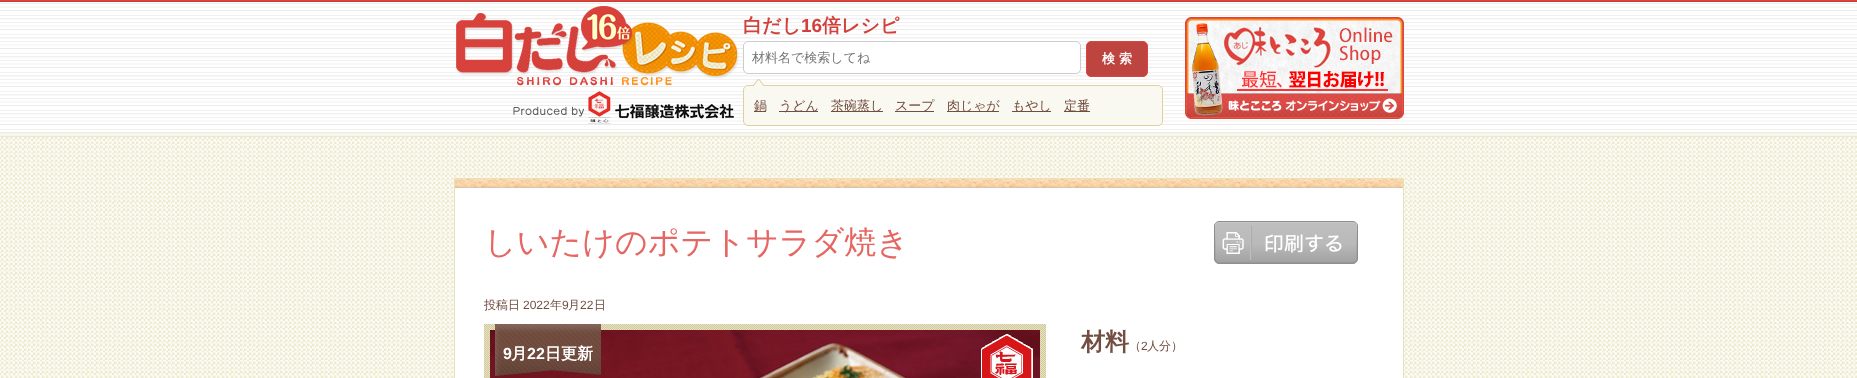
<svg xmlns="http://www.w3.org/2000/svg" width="1857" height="378">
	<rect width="100%" height="100%" fill="#FFFFFF" />
	<image x="0" y="137" width="1857" height="241" href="assets/img1.png" />
	<image x="0" y="0" width="1857" height="137" href="assets/img2.png" />
	<image x="456" y="6" width="283" height="118" href="assets/img3.png" />
	<text x="743" y="32" font-family="WenQuanYi Zen Hei" font-size="19" font-weight="700" fill="#D2403B">白だし</text>
	<text x="801" y="32" font-family="Liberation Sans" font-size="19" font-weight="700" fill="#D2403B">16</text>
	<text x="822" y="32" font-family="WenQuanYi Zen Hei" font-size="19" font-weight="700" fill="#D2403B">倍レシピ</text>
	<rect x="743.5" y="41.5" width="337" height="32" rx="4.5" fill="#FFFFFF" stroke="#CCCCCC" />
	<text x="752" y="62" font-family="WenQuanYi Zen Hei" font-size="13" font-weight="500" fill="#757575">材料名で検索してね</text>
	<rect x="1086.5" y="41.5" width="61" height="35" rx="4.5" fill="#BD443F" stroke="#DD443F" />
	<text x="1102" y="63" font-family="WenQuanYi Zen Hei" font-size="13" font-weight="700" fill="#FFFFFF">検 索</text>
	<rect x="743.5" y="85.5" width="419" height="40" rx="4.5" fill="#FAF9F1" stroke="#DED19B" />
	<image x="753" y="79" width="11" height="8" href="assets/img4.png" />
	<rect x="754" y="111" width="12" height="1" fill="#724D40" />
	<text x="754" y="110" font-family="WenQuanYi Zen Hei" font-size="13" font-weight="500" fill="#724D40">鍋</text>
	<rect x="779" y="111" width="39" height="1" fill="#724D40" />
	<text x="779" y="110" font-family="WenQuanYi Zen Hei" font-size="13" font-weight="500" fill="#724D40">うどん</text>
	<rect x="831" y="111" width="52" height="1" fill="#724D40" />
	<text x="831" y="110" font-family="WenQuanYi Zen Hei" font-size="13" font-weight="500" fill="#724D40">茶碗蒸し</text>
	<rect x="895" y="111" width="39" height="1" fill="#724D40" />
	<text x="895" y="110" font-family="WenQuanYi Zen Hei" font-size="13" font-weight="500" fill="#724D40">スープ</text>
	<rect x="947" y="111" width="52" height="1" fill="#724D40" />
	<text x="947" y="110" font-family="WenQuanYi Zen Hei" font-size="13" font-weight="500" fill="#724D40">肉じゃが</text>
	<rect x="1012" y="111" width="39" height="1" fill="#724D40" />
	<text x="1012" y="110" font-family="WenQuanYi Zen Hei" font-size="13" font-weight="500" fill="#724D40">もやし</text>
	<rect x="1064" y="111" width="26" height="1" fill="#724D40" />
	<text x="1064" y="110" font-family="WenQuanYi Zen Hei" font-size="13" font-weight="500" fill="#724D40">定番</text>
	<image x="1185" y="17" width="219" height="102" href="assets/img5.png" />
	<rect x="455" y="188" width="948" height="190" fill="#FFFFFF" />
	<image x="455" y="179" width="948" height="9" href="assets/img6.png" />
	<rect x="454.5" y="178.5" width="949" height="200" fill="none" stroke="#E8E2BA" />
	<text x="484" y="253" font-family="WenQuanYi Zen Hei" font-size="32" font-weight="500" fill="#E56662">しいたけのポテトサラダ焼き</text>
	<image x="1214" y="221" width="144" height="43" href="assets/img7.png" />
	<text x="484" y="309" font-family="WenQuanYi Zen Hei" font-size="12" font-weight="500" fill="#724D40">投稿日</text>
	<text x="523" y="309" font-family="Liberation Sans" font-size="12" fill="#724D40">2022</text>
	<text x="550" y="309" font-family="WenQuanYi Zen Hei" font-size="12" font-weight="500" fill="#724D40">年</text>
	<text x="562" y="309" font-family="Liberation Sans" font-size="12" fill="#724D40">9</text>
	<text x="568" y="309" font-family="WenQuanYi Zen Hei" font-size="12" font-weight="500" fill="#724D40">月</text>
	<text x="580" y="309" font-family="Liberation Sans" font-size="12" fill="#724D40">22</text>
	<text x="594" y="309" font-family="WenQuanYi Zen Hei" font-size="12" font-weight="500" fill="#724D40">日</text>
	<image x="484" y="324" width="562" height="54" href="assets/img8.png" />
	<image x="490" y="330" width="550" height="48" href="assets/img9.png" />
	<text x="1081" y="350" font-family="WenQuanYi Zen Hei" font-size="24" font-weight="700" fill="#724D40">材料</text>
	<text x="1129" y="350" font-family="WenQuanYi Zen Hei" font-size="12" font-weight="500" fill="#724D40">（</text>
	<text x="1141" y="350" font-family="Liberation Sans" font-size="12" fill="#724D40">2</text>
	<text x="1147" y="350" font-family="WenQuanYi Zen Hei" font-size="12" font-weight="500" fill="#724D40">人分）</text>
	<image x="495" y="324" width="106" height="52" href="assets/img10.png" />
	<text x="503" y="359" font-family="Liberation Sans" font-size="16" font-weight="700" fill="#FFFFFF">9</text>
	<text x="511" y="359" font-family="WenQuanYi Zen Hei" font-size="16" font-weight="700" fill="#FFFFFF">月</text>
	<text x="527" y="359" font-family="Liberation Sans" font-size="16" font-weight="700" fill="#FFFFFF">22</text>
	<text x="545" y="359" font-family="WenQuanYi Zen Hei" font-size="16" font-weight="700" fill="#FFFFFF">日更新</text>
</svg>
